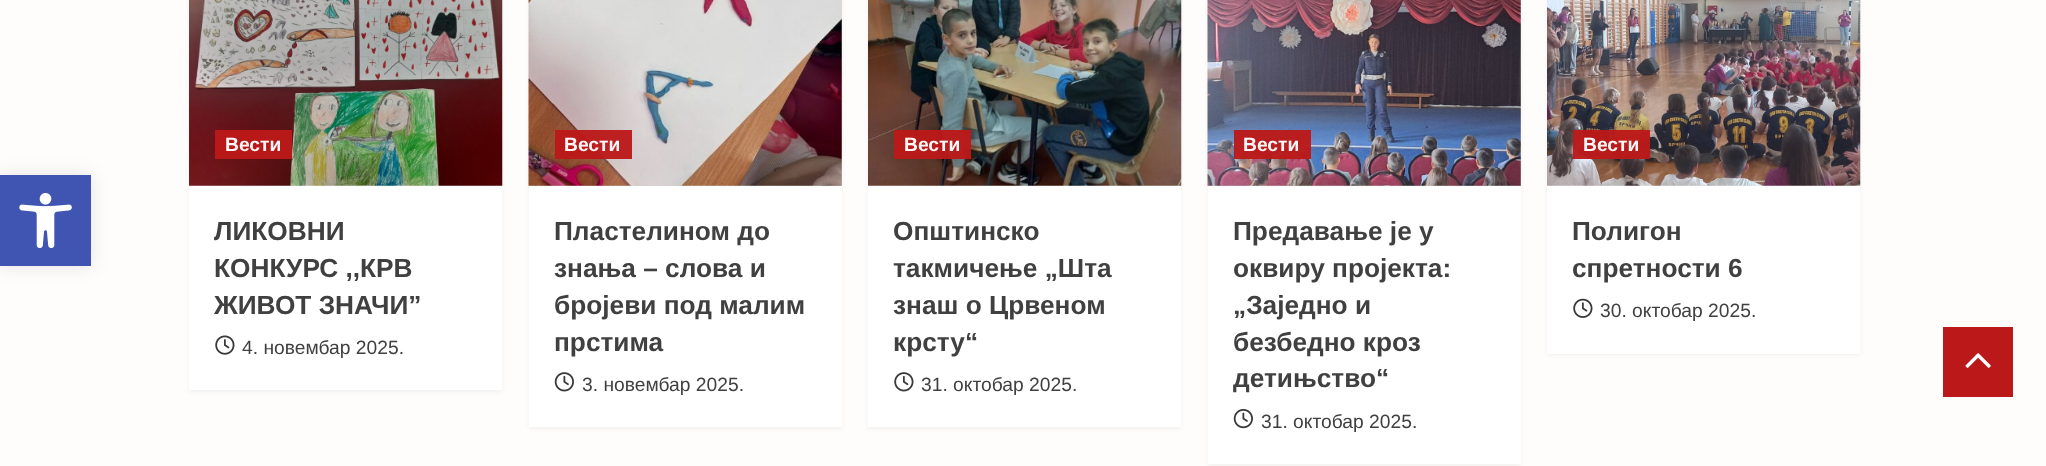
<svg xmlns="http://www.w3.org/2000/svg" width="2046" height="466">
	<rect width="100%" height="100%" fill="#FFFCFC" />
	<rect x="0" y="175" width="91" height="91" fill="#000000" fill-opacity="0.1" filter="blur(9px)" />
	<rect x="0" y="175" width="91" height="91" fill="#4054B2" />
	<image x="19" y="193" width="53" height="56" href="assets/img1.png" />
	<rect x="189" y="-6" width="313" height="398" fill="#000000" fill-opacity="0.05" filter="blur(2px)" />
	<rect x="189" y="185" width="313" height="205" fill="#FFFFFF" />
	<image x="189" y="0" width="314" height="186" href="assets/img2.png" />
	<rect x="215" y="130" width="77" height="29" fill="#BB1919" fill-opacity="0.96" />
	<text x="225" y="151" font-family="Liberation Sans" font-size="19.25" font-weight="700" fill="#FCF6F6">Вести</text>
	<g font-family="Liberation Sans" font-size="26.25" font-weight="700" fill="#404040">
		<text x="214" y="240">ЛИКОВНИ</text>
		<text x="214" y="277">КОНКУРС ,,КРВ</text>
		<text x="214" y="314">ЖИВОТ ЗНАЧИ”</text>
	</g>
	<image x="215" y="335" width="20" height="20" href="assets/img3.png" />
	<text x="242" y="354" font-family="Liberation Sans" font-size="19.25" fill="#404040">4. новембар 2025.</text>
	<rect x="529" y="-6" width="313" height="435" fill="#000000" fill-opacity="0.05" filter="blur(2px)" />
	<rect x="529" y="186" width="313" height="241" fill="#FFFFFF" />
	<rect x="529" y="0" width="313" height="186" fill="#D8D8D8" />
	<image x="528" y="0" width="314" height="186" href="assets/img4.png" />
	<rect x="555" y="130" width="77" height="29" fill="#BB1919" fill-opacity="0.96" />
	<text x="564" y="151" font-family="Liberation Sans" font-size="19.25" font-weight="700" fill="#FCF6F6">Вести</text>
	<g font-family="Liberation Sans" font-size="26.25" font-weight="700" fill="#404040">
		<text x="554" y="240">Пластелином до</text>
		<text x="554" y="277">знања – слова и</text>
		<text x="554" y="314">бројеви под малим</text>
		<text x="554" y="351">прстима</text>
	</g>
	<image x="554" y="372" width="20" height="20" href="assets/img5.png" />
	<text x="582" y="391" font-family="Liberation Sans" font-size="19.25" fill="#404040">3. новембар 2025.</text>
	<rect x="868" y="-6" width="313" height="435" fill="#000000" fill-opacity="0.05" filter="blur(2px)" />
	<rect x="868" y="185" width="313" height="242" fill="#FFFFFF" />
	<image x="868" y="0" width="314" height="186" href="assets/img6.png" />
	<rect x="894" y="130" width="77" height="29" fill="#BB1919" fill-opacity="0.96" />
	<text x="904" y="151" font-family="Liberation Sans" font-size="19.25" font-weight="700" fill="#FCF6F6">Вести</text>
	<g font-family="Liberation Sans" font-size="26.25" font-weight="700" fill="#404040">
		<text x="893" y="240">Општинско</text>
		<text x="893" y="277">такмичење „Шта</text>
		<text x="893" y="314">знаш о Црвеном</text>
		<text x="893" y="351">крсту“</text>
	</g>
	<image x="894" y="372" width="20" height="20" href="assets/img7.png" />
	<text x="921" y="391" font-family="Liberation Sans" font-size="19.25" fill="#404040">31. октобар 2025.</text>
	<rect x="1208" y="-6" width="313" height="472" fill="#000000" fill-opacity="0.05" filter="blur(2px)" />
	<rect x="1208" y="186" width="313" height="278" fill="#FFFFFF" />
	<rect x="1208" y="0" width="313" height="186" fill="#D8D8D8" />
	<image x="1207" y="0" width="314" height="186" href="assets/img8.png" />
	<rect x="1234" y="130" width="77" height="29" fill="#BB1919" fill-opacity="0.96" />
	<text x="1243" y="151" font-family="Liberation Sans" font-size="19.25" font-weight="700" fill="#FCF6F6">Вести</text>
	<g font-family="Liberation Sans" font-size="26.25" font-weight="700" fill="#404040">
		<text x="1233" y="240">Предавање је у</text>
		<text x="1233" y="277">оквиру пројекта:</text>
		<text x="1233" y="314">„Заједно и</text>
		<text x="1233" y="351">безбедно кроз</text>
		<text x="1233" y="387">детињство“</text>
	</g>
	<image x="1233" y="409" width="20" height="20" href="assets/img9.png" />
	<text x="1261" y="428" font-family="Liberation Sans" font-size="19.25" fill="#404040">31. октобар 2025.</text>
	<rect x="1547" y="-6" width="313" height="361" fill="#000000" fill-opacity="0.05" filter="blur(2px)" />
	<rect x="1547" y="185" width="313" height="169" fill="#FFFFFF" />
	<image x="1547" y="0" width="314" height="186" href="assets/img10.png" />
	<rect x="1573" y="130" width="77" height="29" fill="#BB1919" fill-opacity="0.96" />
	<text x="1583" y="151" font-family="Liberation Sans" font-size="19.25" font-weight="700" fill="#FCF6F6">Вести</text>
	<g font-family="Liberation Sans" font-size="26.25" font-weight="700" fill="#404040">
		<text x="1572" y="240">Полигон</text>
		<text x="1572" y="277">спретности 6</text>
	</g>
	<image x="1573" y="298" width="20" height="20" href="assets/img11.png" />
	<text x="1600" y="317" font-family="Liberation Sans" font-size="19.25" fill="#404040">30. октобар 2025.</text>
	<rect x="1943" y="327" width="70" height="70" fill="#BB1919" />
	<image x="1965" y="353" width="26" height="15" href="assets/img12.png" />
</svg>
